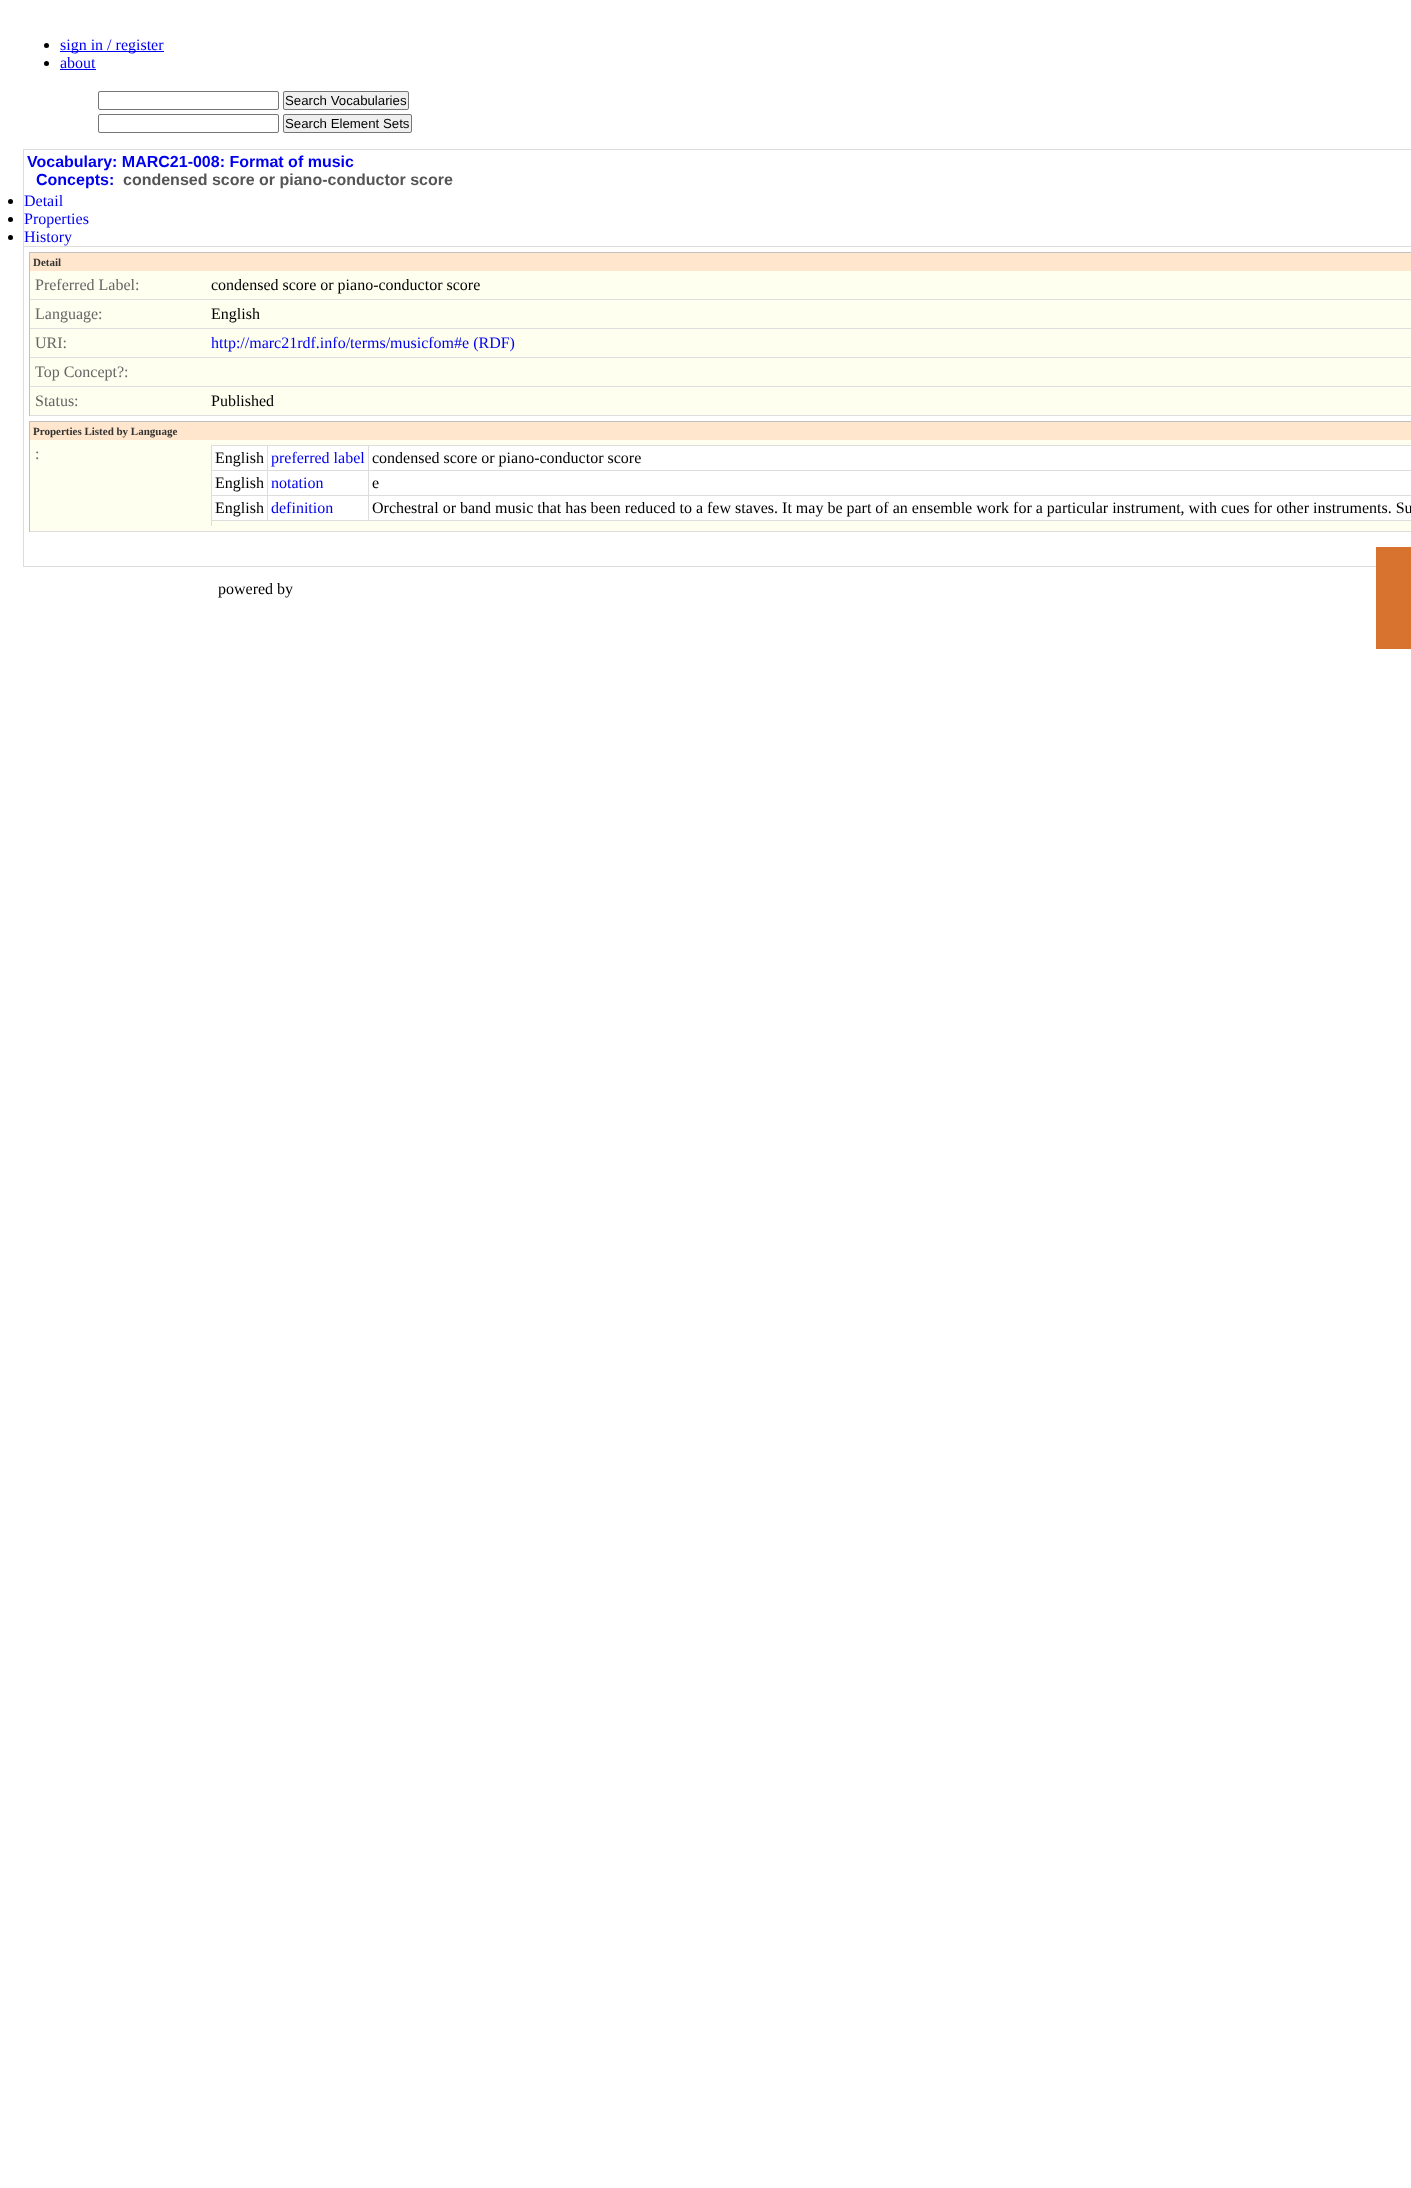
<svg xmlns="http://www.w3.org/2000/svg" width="1411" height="2188">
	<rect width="100%" height="100%" fill="#FFFFFF" />
	<circle cx="46.5" cy="45.5" r="2.5" fill="#000000" />
	<rect x="60" y="51" width="104" height="1" fill="#0000EE" />
	<text x="60" y="50" font-family="Liberation Serif" font-size="16" fill="#0000EE">sign in / register</text>
	<circle cx="46.5" cy="63.5" r="2.5" fill="#000000" />
	<text x="60" y="68" font-family="Liberation Serif" font-size="16" fill="#0000EE">about</text>
	<rect x="60" y="69" width="36" height="1" fill="#0000EE" />
	<rect x="98.5" y="91.5" width="180" height="18" rx="1.5" fill="none" stroke="#767676" />
	<rect x="283.5" y="91.5" width="125" height="18" rx="1.5" fill="#EFEFEF" stroke="#767676" />
	<text x="285" y="105" font-family="Liberation Sans" font-size="13.25" fill="#000000">Search Vocabularies</text>
	<rect x="98.5" y="114.5" width="180" height="18" rx="1.5" fill="none" stroke="#767676" />
	<rect x="283.5" y="114.5" width="128" height="18" rx="1.5" fill="#EFEFEF" stroke="#767676" />
	<text x="285" y="128" font-family="Liberation Sans" font-size="13.25" fill="#000000">Search Element Sets</text>
	<rect x="23.5" y="149.5" width="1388" height="417" fill="none" stroke="#DDDDDD" />
	<g font-family="Liberation Sans" font-size="16" font-weight="700" fill="#0000EE">
		<text x="27" y="167">Vocabulary: MARC21-008: Format of music</text>
		<text x="36" y="185">Concepts:</text>
	</g>
	<text x="123" y="185" font-family="Liberation Sans" font-size="16" font-weight="700" fill="#555555">condensed score or piano-conductor score</text>
	<circle cx="10.5" cy="201.5" r="2.5" fill="#000000" />
	<text x="24" y="206" font-family="Liberation Serif" font-size="16" fill="#0000EE">Detail</text>
	<circle cx="10.5" cy="219.5" r="2.5" fill="#000000" />
	<text x="24" y="224" font-family="Liberation Serif" font-size="16" fill="#0000EE">Properties</text>
	<circle cx="10.5" cy="237.5" r="2.5" fill="#000000" />
	<text x="24" y="242" font-family="Liberation Serif" font-size="16" fill="#0000EE">History</text>
	<rect x="24" y="246" width="1387" height="1" fill="#DDDDDD" />
	<rect x="29" y="252" width="1382" height="1" fill="#C0C0C0" />
	<rect x="29" y="252" width="1" height="164" fill="#C0C0C0" />
	<rect x="30" y="253" width="1381" height="18" fill="#FFE6CC" />
	<text x="33" y="266" font-family="Liberation Serif" font-size="11" font-weight="700" fill="#333333">Detail</text>
	<rect x="30" y="271" width="1381" height="28" fill="#FFFFF0" />
	<rect x="30" y="299" width="1381" height="1" fill="#DDDDDD" />
	<text x="35" y="290" font-family="Liberation Serif" font-size="16" fill="#666666">Preferred Label:</text>
	<text x="211" y="290" font-family="Liberation Serif" font-size="16" fill="#000000">condensed score or piano-conductor score</text>
	<rect x="30" y="300" width="1381" height="28" fill="#FFFFF0" />
	<rect x="30" y="328" width="1381" height="1" fill="#DDDDDD" />
	<text x="35" y="319" font-family="Liberation Serif" font-size="16" fill="#666666">Language:</text>
	<text x="211" y="319" font-family="Liberation Serif" font-size="16" fill="#000000">English</text>
	<rect x="30" y="329" width="1381" height="28" fill="#FFFFF0" />
	<rect x="30" y="357" width="1381" height="1" fill="#DDDDDD" />
	<text x="35" y="348" font-family="Liberation Serif" font-size="16" fill="#666666">URI:</text>
	<text x="211" y="348" font-family="Liberation Serif" font-size="16" fill="#0000EE">http://marc21rdf.info/terms/musicfom#e (RDF)</text>
	<rect x="30" y="358" width="1381" height="28" fill="#FFFFF0" />
	<rect x="30" y="386" width="1381" height="1" fill="#DDDDDD" />
	<text x="35" y="377" font-family="Liberation Serif" font-size="16" fill="#666666">Top Concept?:</text>
	<rect x="30" y="387" width="1381" height="28" fill="#FFFFF0" />
	<rect x="30" y="415" width="1381" height="1" fill="#DDDDDD" />
	<text x="35" y="406" font-family="Liberation Serif" font-size="16" fill="#666666">Status:</text>
	<text x="211" y="406" font-family="Liberation Serif" font-size="16" fill="#000000">Published</text>
	<rect x="29" y="421" width="1382" height="1" fill="#C0C0C0" />
	<rect x="29" y="421" width="1" height="111" fill="#C0C0C0" />
	<rect x="30" y="422" width="1381" height="18" fill="#FFE6CC" />
	<text x="33" y="435" font-family="Liberation Serif" font-size="11" font-weight="700" fill="#333333">Properties Listed by Language</text>
	<rect x="30" y="440" width="1381" height="91" fill="#FFFFF0" />
	<rect x="30" y="531" width="1381" height="1" fill="#DDDDDD" />
	<text x="35" y="459" font-family="Liberation Serif" font-size="16" fill="#666666">:</text>
	<rect x="211" y="445" width="1200" height="1" fill="#DDDDDD" />
	<rect x="211" y="445" width="1" height="81" fill="#DDDDDD" />
	<rect x="212" y="446" width="55" height="24" fill="#FFFFFF" />
	<rect x="267" y="446" width="1" height="75" fill="#DDDDDD" />
	<rect x="212" y="470" width="56" height="1" fill="#DDDDDD" />
	<text x="215" y="463" font-family="Liberation Serif" font-size="16" fill="#000000">English</text>
	<rect x="268" y="446" width="100" height="24" fill="#FFFFFF" />
	<rect x="368" y="446" width="1" height="75" fill="#DDDDDD" />
	<rect x="268" y="470" width="1143" height="1" fill="#DDDDDD" />
	<text x="271" y="463" font-family="Liberation Serif" font-size="16" fill="#0000EE">preferred label</text>
	<rect x="369" y="446" width="1042" height="24" fill="#FFFFFF" />
	<text x="372" y="463" font-family="Liberation Serif" font-size="16" fill="#000000">condensed score or piano-conductor score</text>
	<rect x="212" y="471" width="55" height="24" fill="#FFFFFF" />
	<rect x="212" y="495" width="1199" height="1" fill="#DDDDDD" />
	<text x="215" y="488" font-family="Liberation Serif" font-size="16" fill="#000000">English</text>
	<rect x="268" y="471" width="100" height="24" fill="#FFFFFF" />
	<text x="271" y="488" font-family="Liberation Serif" font-size="16" fill="#0000EE">notation</text>
	<rect x="369" y="471" width="1042" height="24" fill="#FFFFFF" />
	<text x="372" y="488" font-family="Liberation Serif" font-size="16" fill="#000000">e</text>
	<rect x="212" y="496" width="55" height="24" fill="#FFFFFF" />
	<rect x="212" y="520" width="1199" height="1" fill="#DDDDDD" />
	<text x="215" y="513" font-family="Liberation Serif" font-size="16" fill="#000000">English</text>
	<rect x="268" y="496" width="100" height="24" fill="#FFFFFF" />
	<text x="271" y="513" font-family="Liberation Serif" font-size="16" fill="#0000EE">definition</text>
	<rect x="369" y="496" width="1042" height="24" fill="#FFFFFF" />
	<g font-family="Liberation Serif" font-size="16" fill="#000000">
		<text x="372" y="513">Orchestral or band music that has been reduced to a few staves. It may be part of an ensemble work for a particular instrument, with cues for other instruments. Su</text>
		<text x="218" y="594">powered by</text>
	</g>
	<rect x="1376" y="547" width="35" height="102" fill="#D8732F" />
</svg>
